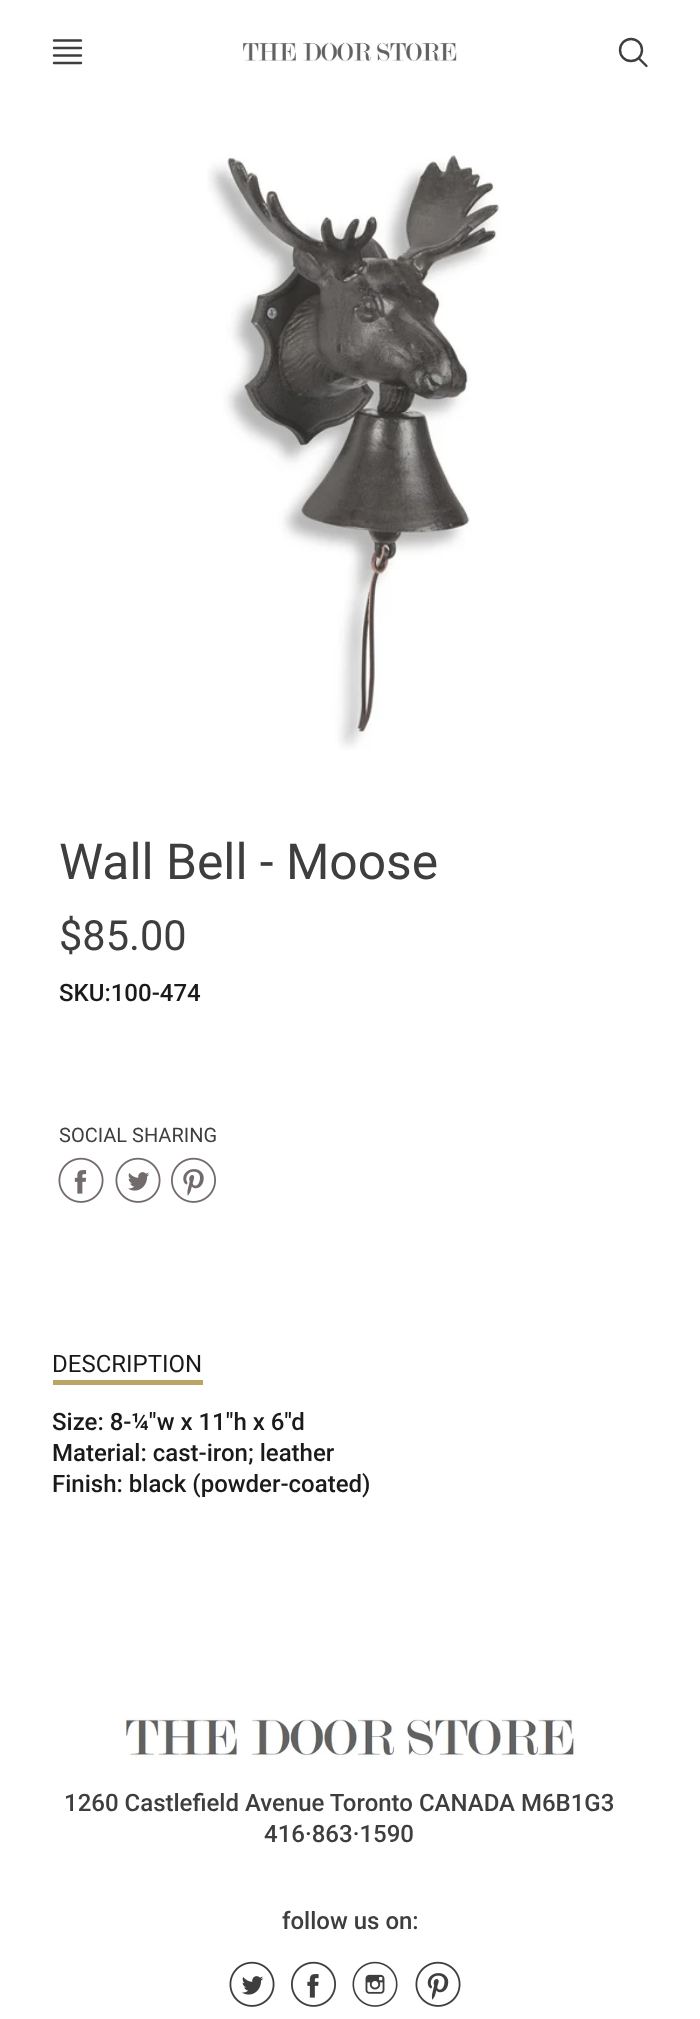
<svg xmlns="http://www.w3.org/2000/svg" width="700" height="2019">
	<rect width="100%" height="100%" fill="#FFFFFF" />
	<path d="M81 55.5H54M81 63H54M81 40.5H54M81 48H54" fill="none" stroke="#3E3E3E" stroke-width="2.4" stroke-linecap="round" stroke-linejoin="round" />
	<image x="243" y="42" width="214" height="20" href="assets/img1.png" />
	<circle cx="631" cy="50" r="11" fill="none" stroke="#3E3E3E" stroke-width="2.4" />
	<path d="M646.5 66L639 58.5" fill="none" stroke="#3E3E3E" stroke-width="2.4" stroke-linecap="round" stroke-linejoin="round" />
	<image x="207" y="154" width="294" height="596" href="assets/img2.png" />
	<text x="59" y="879" font-family="Roboto" font-size="49.75" fill="#3E3E3E">Wall Bell - Moose</text>
	<text x="59" y="950" font-family="Roboto" font-size="41.5" fill="#3E3E3E">$85.00</text>
	<text x="59" y="1001" font-family="Roboto" font-size="24" font-weight="500" fill="#1A1A1A">SKU:100-474</text>
	<text x="59" y="1142" font-family="Roboto" font-size="20" fill="#3E3E3E">SOCIAL SHARING</text>
	<image x="58" y="1157" width="46" height="46" href="assets/img3.png" />
	<image x="115" y="1157" width="46" height="46" href="assets/img4.png" />
	<image x="171" y="1157" width="45" height="46" href="assets/img5.png" />
	<rect x="53" y="1380" width="150" height="5" fill="#BAA662" />
	<text x="52" y="1372" font-family="Roboto" font-size="24" fill="#1A1A1A">DESCRIPTION</text>
	<g font-family="Roboto" font-size="24" font-weight="500" fill="#1A1A1A">
		<text x="52" y="1430">Size: 8-¼"w x 11"h x 6"d</text>
		<text x="52" y="1461">Material: cast-iron; leather</text>
		<text x="52" y="1492">Finish: black (powder-coated)</text>
	</g>
	<image x="126" y="1718" width="450" height="41" href="assets/img6.png" />
	<g font-family="Roboto" font-size="24" font-weight="500" fill="#3E3E3E">
		<text x="64" y="1811">1260 Castlefield Avenue Toronto CANADA M6B1G3</text>
		<text x="264" y="1842">416·863·1590</text>
		<text x="282" y="1929">follow us on:</text>
	</g>
	<image x="229" y="1961" width="46" height="46" href="assets/img7.png" />
	<image x="291" y="1961" width="45" height="46" href="assets/img8.png" />
	<image x="352" y="1961" width="46" height="46" href="assets/img9.png" />
	<image x="415" y="1961" width="46" height="46" href="assets/img10.png" />
</svg>
